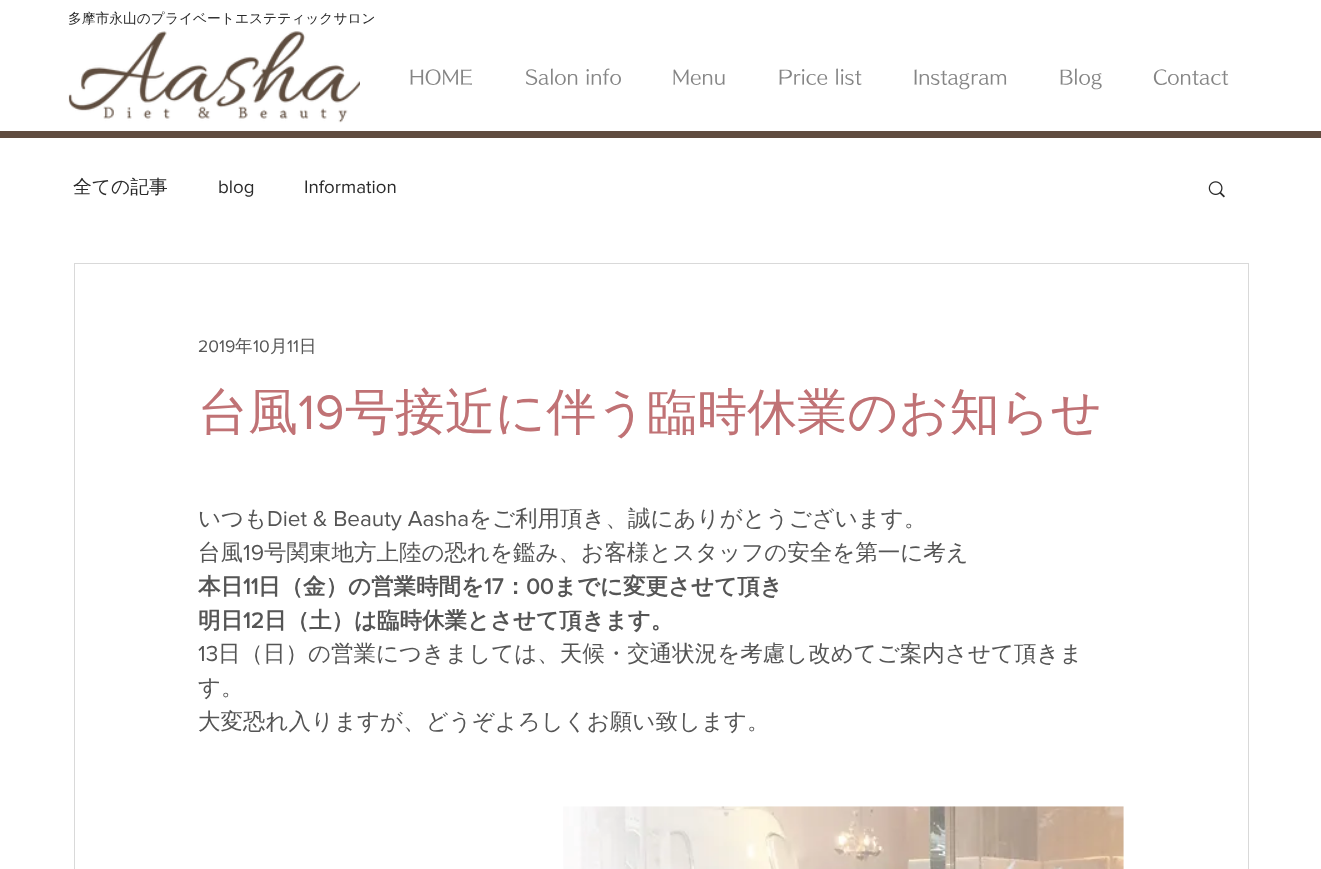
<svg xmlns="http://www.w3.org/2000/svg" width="1321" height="869">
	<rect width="100%" height="100%" fill="#FFFFFF" />
	<text x="68" y="23" font-family="WenQuanYi Zen Hei" font-size="13.75" font-weight="500" fill="#2A2A2A">多摩市永山のプライベートエステティックサロン</text>
	<image x="68" y="31" width="292" height="92" href="assets/img1.png" />
	<g font-family="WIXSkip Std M" font-size="18.75" font-weight="500" fill="#858585">
		<text x="409" y="84">HOME</text>
		<text x="525" y="84">Salon info</text>
		<text x="672" y="84">Menu</text>
		<text x="778" y="84">Price list</text>
		<text x="913" y="84">Instagram</text>
		<text x="1059" y="84">Blog</text>
		<text x="1153" y="84">Contact</text>
	</g>
	<rect x="0" y="131" width="1321" height="7" fill="#604C3F" />
	<text x="73" y="193" font-family="WenQuanYi Zen Hei" font-size="18.75" font-weight="500" fill="#2A2A2A">全ての記事</text>
	<g font-family="'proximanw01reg'" font-size="18.75" fill="#2A2A2A">
		<text x="218" y="193">blog</text>
		<text x="304" y="193">Information</text>
	</g>
	<image x="1208" y="181" width="17" height="17" href="assets/img2.png" />
	<rect x="74.5" y="263.5" width="1174" height="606" fill="none" stroke="#D9D9D9" />
	<text x="198" y="352" font-family="'proximanw01reg'" font-size="17.5" fill="#555555">2019</text>
	<text x="235" y="352" font-family="WenQuanYi Zen Hei" font-size="17.5" font-weight="500" fill="#555555">年</text>
	<text x="253" y="352" font-family="'proximanw01reg'" font-size="17.5" fill="#555555">10</text>
	<text x="270" y="352" font-family="WenQuanYi Zen Hei" font-size="17.5" font-weight="500" fill="#555555">月</text>
	<text x="287" y="352" font-family="'proximanw01reg'" font-size="17.5" fill="#555555">11</text>
	<text x="299" y="352" font-family="WenQuanYi Zen Hei" font-size="17.5" font-weight="500" fill="#555555">日</text>
	<text x="198" y="429" font-family="WenQuanYi Zen Hei" font-size="50" font-weight="500" fill="#C07275">台風</text>
	<text x="298" y="429" font-family="'proximanw01reg'" font-size="50" fill="#C07275">19</text>
	<text x="345" y="429" font-family="WenQuanYi Zen Hei" font-size="50" font-weight="500" fill="#C07275">号接近に伴う臨時休業のお知らせ</text>
	<text x="198" y="526" font-family="WenQuanYi Zen Hei" font-size="22.5" font-weight="500" fill="#555555">いつも</text>
	<text x="267" y="526" font-family="'proximanw01reg'" font-size="22.5" fill="#555555">Diet &amp; Beauty Aasha</text>
	<g font-family="WenQuanYi Zen Hei" font-size="22.5" font-weight="500" fill="#555555">
		<text x="469" y="526">をご利用頂き、誠にありがとうございます。</text>
		<text x="198" y="560">台風</text>
	</g>
	<text x="243" y="560" font-family="'proximanw01reg'" font-size="22.5" fill="#555555">19</text>
	<text x="264" y="560" font-family="WenQuanYi Zen Hei" font-size="22.5" font-weight="500" fill="#555555">号関東地方上陸の恐れを鑑み、お客様とスタッフの安全を第一に考え</text>
	<text x="198" y="594" font-family="WenQuanYi Zen Hei" font-size="22.5" font-weight="700" fill="#555555">本日</text>
	<text x="243" y="594" font-family="'proximanw01reg'" font-size="22.5" font-weight="700" fill="#555555">11</text>
	<text x="258" y="594" font-family="WenQuanYi Zen Hei" font-size="22.5" font-weight="700" fill="#555555">日（金）の営業時間を</text>
	<text x="484" y="594" font-family="'proximanw01reg'" font-size="22.5" font-weight="700" fill="#555555">17</text>
	<text x="504" y="594" font-family="WenQuanYi Zen Hei" font-size="22.5" font-weight="700" fill="#555555">：</text>
	<text x="526" y="594" font-family="'proximanw01reg'" font-size="22.5" font-weight="700" fill="#555555">00</text>
	<g font-family="WenQuanYi Zen Hei" font-size="22.5" font-weight="700" fill="#555555">
		<text x="554" y="594">までに変更させて頂き</text>
		<text x="198" y="628">明日</text>
	</g>
	<text x="243" y="628" font-family="'proximanw01reg'" font-size="22.5" font-weight="700" fill="#555555">12</text>
	<text x="264" y="628" font-family="WenQuanYi Zen Hei" font-size="22.5" font-weight="700" fill="#555555">日（土）は臨時休業とさせて頂きます。</text>
	<text x="198" y="661" font-family="'proximanw01reg'" font-size="22.5" fill="#555555">13</text>
	<g font-family="WenQuanYi Zen Hei" font-size="22.5" font-weight="500" fill="#555555">
		<text x="218" y="661">日（日）の営業につきましては、天候・交通状況を考慮し改めてご案内させて頂きま</text>
		<text x="198" y="695">す。</text>
		<text x="198" y="729">大変恐れ入りますが、どうぞよろしくお願い致します。</text>
	</g>
	<image x="563" y="806" width="561" height="63" href="assets/img3.png" />
</svg>
